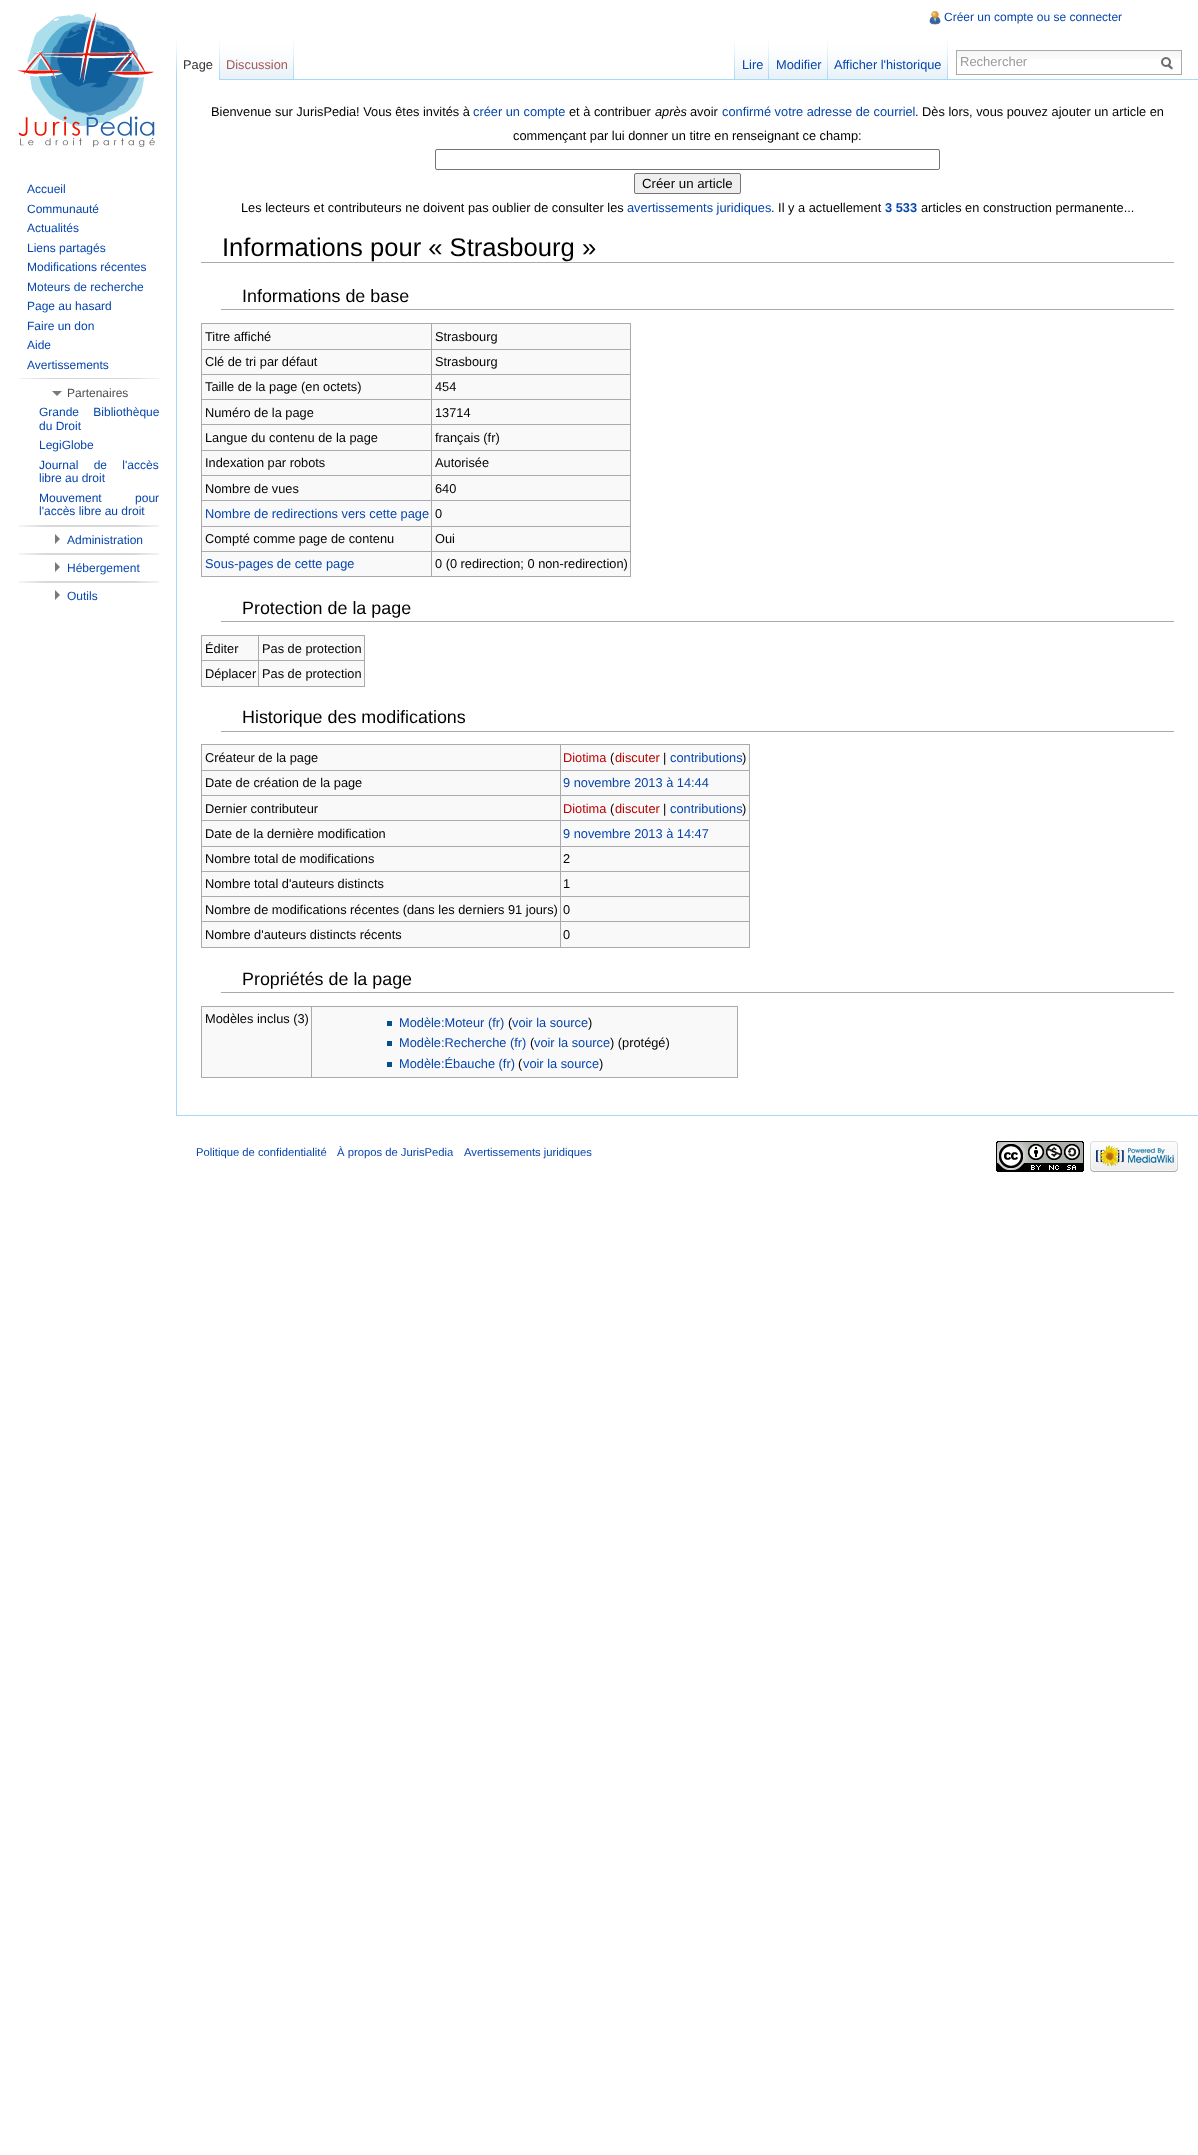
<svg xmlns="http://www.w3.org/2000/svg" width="1198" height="2155">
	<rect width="100%" height="100%" fill="#FFFFFF" />
	<image x="929" y="11" width="12" height="14" href="assets/img1.png" />
	<text x="944" y="21" font-family="Liberation Sans" font-size="12" fill="#0645AD">Créer un compte ou se connecter</text>
	<image x="176" y="40" width="1" height="39" href="assets/img2.png" />
	<image x="219" y="40" width="1" height="40" href="assets/img3.png" />
	<text x="183" y="69" font-family="Liberation Sans" font-size="12.8" fill="#333333">Page</text>
	<image x="220" y="40" width="74" height="40" href="assets/img4.png" />
	<image x="293" y="40" width="1" height="39" href="assets/img5.png" />
	<text x="226" y="69" font-family="Liberation Sans" font-size="12.8" fill="#A55858">Discussion</text>
	<image x="734" y="40" width="1" height="39" href="assets/img2.png" />
	<rect x="294" y="79" width="904" height="1" fill="#A7D7F9" />
	<image x="735" y="40" width="34" height="40" href="assets/img6.png" />
	<image x="768" y="40" width="1" height="39" href="assets/img5.png" />
	<text x="742" y="69" font-family="Liberation Sans" font-size="12.8" fill="#0645AD">Lire</text>
	<image x="769" y="40" width="59" height="40" href="assets/img7.png" />
	<image x="827" y="40" width="1" height="39" href="assets/img5.png" />
	<text x="776" y="69" font-family="Liberation Sans" font-size="12.8" fill="#0645AD">Modifier</text>
	<image x="828" y="40" width="120" height="40" href="assets/img8.png" />
	<image x="947" y="40" width="1" height="39" href="assets/img5.png" />
	<text x="834" y="69" font-family="Liberation Sans" font-size="12.8" fill="#0645AD">Afficher l'historique</text>
	<image x="957" y="51" width="224" height="8" href="assets/img9.png" />
	<rect x="956.5" y="50.5" width="225" height="24" fill="none" stroke="#AAAAAA" />
	<text x="960" y="66" font-family="Liberation Sans" font-size="13" fill="#999999">Rechercher</text>
	<image x="1161" y="57" width="12" height="13" href="assets/img10.png" />
	<image x="18" y="12" width="137" height="135" href="assets/img11.png" />
	<g font-family="Liberation Sans" font-size="12" fill="#0645AD">
		<text x="27" y="193">Accueil</text>
		<text x="27" y="213">Communauté</text>
		<text x="27" y="232">Actualités</text>
		<text x="27" y="252">Liens partagés</text>
		<text x="27" y="271">Modifications récentes</text>
		<text x="27" y="291">Moteurs de recherche</text>
		<text x="27" y="310">Page au hasard</text>
		<text x="27" y="330">Faire un don</text>
		<text x="27" y="349">Aide</text>
		<text x="27" y="369">Avertissements</text>
	</g>
	<image x="19" y="378" width="140" height="1" href="assets/img12.png" />
	<path d="M62 391L57 396L52 391Z" fill="#797979" />
	<text x="67" y="397" font-family="Liberation Sans" font-size="12" fill="#4D4D4D">Partenaires</text>
	<g font-family="Liberation Sans" font-size="12" fill="#0645AD">
		<text x="39" y="416" word-spacing="11">Grande Bibliothèque</text>
		<text x="39" y="430">du Droit</text>
		<text x="39" y="449">LegiGlobe</text>
		<text x="39" y="469" word-spacing="12">Journal de l'accès</text>
		<text x="39" y="482">libre au droit</text>
		<text x="39" y="502" word-spacing="30">Mouvement pour</text>
		<text x="39" y="515">l'accès libre au droit</text>
	</g>
	<image x="19" y="525" width="140" height="2" href="assets/img13.png" />
	<path d="M55 534L60 539L55 544Z" fill="#797979" />
	<text x="67" y="544" font-family="Liberation Sans" font-size="12" fill="#0645AD">Administration</text>
	<image x="19" y="553" width="140" height="2" href="assets/img13.png" />
	<path d="M55 562L60 567L55 572Z" fill="#797979" />
	<text x="67" y="572" font-family="Liberation Sans" font-size="12" fill="#0645AD">Hébergement</text>
	<image x="19" y="581" width="140" height="2" href="assets/img13.png" />
	<path d="M55 590L60 595L55 600Z" fill="#797979" />
	<text x="67" y="600" font-family="Liberation Sans" font-size="12" fill="#0645AD">Outils</text>
	<rect x="176" y="1115" width="1022" height="1" fill="#A7D7F9" />
	<rect x="176" y="79" width="1" height="1037" fill="#A7D7F9" />
	<text x="211" y="116" font-family="Liberation Sans" font-size="12.8" fill="#000000">Bienvenue sur JurisPedia! Vous êtes invités à</text>
	<text x="473" y="116" font-family="Liberation Sans" font-size="12.8" fill="#0645AD">créer un compte</text>
	<text x="569" y="116" font-family="Liberation Sans" font-size="12.8" fill="#000000">et à contribuer</text>
	<text x="655" y="116" font-family="Liberation Sans" font-size="12.8" font-style="italic" fill="#000000">après</text>
	<text x="690" y="116" font-family="Liberation Sans" font-size="12.8" fill="#000000">avoir</text>
	<text x="722" y="116" font-family="Liberation Sans" font-size="12.8" fill="#0645AD">confirmé votre adresse de courriel</text>
	<g font-family="Liberation Sans" font-size="12.8" fill="#000000">
		<text x="915" y="116">. Dès lors, vous pouvez ajouter un article en</text>
		<text x="513" y="140">commençant par lui donner un titre en renseignant ce champ:</text>
	</g>
	<rect x="435.5" y="149.5" width="504" height="20" rx="1.5" fill="none" stroke="#767676" />
	<rect x="634.5" y="173.5" width="106" height="20" rx="1.5" fill="#EFEFEF" stroke="#767676" />
	<text x="642" y="188" font-family="Liberation Sans" font-size="13.25" fill="#000000">Créer un article</text>
	<text x="241" y="212" font-family="Liberation Sans" font-size="12.8" fill="#000000">Les lecteurs et contributeurs ne doivent pas oublier de consulter les</text>
	<text x="627" y="212" font-family="Liberation Sans" font-size="12.8" fill="#0645AD">avertissements juridiques</text>
	<text x="771" y="212" font-family="Liberation Sans" font-size="12.8" fill="#000000">. Il y a actuellement</text>
	<text x="885" y="212" font-family="Liberation Sans" font-size="12.8" font-weight="700" fill="#0645AD">3 533</text>
	<text x="921" y="212" font-family="Liberation Sans" font-size="12.8" fill="#000000">articles en construction permanente...</text>
	<rect x="201" y="262" width="973" height="1" fill="#AAAAAA" />
	<text x="222" y="256" font-family="Liberation Sans" font-size="25.6" fill="#000000">Informations pour « Strasbourg »</text>
	<rect x="221" y="309" width="953" height="1" fill="#AAAAAA" />
	<text x="242" y="302" font-family="Liberation Sans" font-size="17.9" fill="#000000">Informations de base</text>
	<rect x="202" y="324" width="428" height="252" fill="#F9F9F9" />
	<rect x="201" y="323" width="430" height="1" fill="#AAAAAA" />
	<rect x="630" y="323" width="1" height="254" fill="#AAAAAA" />
	<rect x="201" y="576" width="430" height="1" fill="#AAAAAA" />
	<rect x="201" y="323" width="1" height="254" fill="#AAAAAA" />
	<text x="205" y="341" font-family="Liberation Sans" font-size="12.8" fill="#000000">Titre affiché</text>
	<rect x="431" y="349" width="200" height="1" fill="#AAAAAA" />
	<rect x="431" y="374" width="200" height="1" fill="#AAAAAA" />
	<rect x="431" y="399" width="200" height="1" fill="#AAAAAA" />
	<rect x="431" y="424" width="200" height="1" fill="#AAAAAA" />
	<rect x="431" y="450" width="200" height="1" fill="#AAAAAA" />
	<rect x="431" y="475" width="200" height="1" fill="#AAAAAA" />
	<rect x="431" y="500" width="200" height="1" fill="#AAAAAA" />
	<rect x="431" y="526" width="200" height="1" fill="#AAAAAA" />
	<rect x="431" y="551" width="200" height="1" fill="#AAAAAA" />
	<rect x="431" y="551" width="1" height="26" fill="#AAAAAA" />
	<rect x="201" y="551" width="231" height="1" fill="#AAAAAA" />
	<rect x="431" y="526" width="1" height="26" fill="#AAAAAA" />
	<rect x="201" y="526" width="231" height="1" fill="#AAAAAA" />
	<rect x="431" y="500" width="1" height="27" fill="#AAAAAA" />
	<rect x="201" y="500" width="231" height="1" fill="#AAAAAA" />
	<rect x="431" y="475" width="1" height="26" fill="#AAAAAA" />
	<rect x="201" y="475" width="231" height="1" fill="#AAAAAA" />
	<rect x="431" y="450" width="1" height="26" fill="#AAAAAA" />
	<rect x="201" y="450" width="231" height="1" fill="#AAAAAA" />
	<rect x="431" y="424" width="1" height="27" fill="#AAAAAA" />
	<rect x="201" y="424" width="231" height="1" fill="#AAAAAA" />
	<rect x="431" y="399" width="1" height="26" fill="#AAAAAA" />
	<rect x="201" y="399" width="231" height="1" fill="#AAAAAA" />
	<rect x="431" y="374" width="1" height="26" fill="#AAAAAA" />
	<rect x="201" y="374" width="231" height="1" fill="#AAAAAA" />
	<rect x="431" y="349" width="1" height="26" fill="#AAAAAA" />
	<rect x="201" y="349" width="231" height="1" fill="#AAAAAA" />
	<rect x="431" y="323" width="1" height="27" fill="#AAAAAA" />
	<g font-family="Liberation Sans" font-size="12.8" fill="#000000">
		<text x="435" y="341">Strasbourg</text>
		<text x="205" y="366">Clé de tri par défaut</text>
		<text x="435" y="366">Strasbourg</text>
		<text x="205" y="391">Taille de la page (en octets)</text>
		<text x="435" y="391">454</text>
		<text x="205" y="417">Numéro de la page</text>
		<text x="435" y="417">13714</text>
		<text x="205" y="442">Langue du contenu de la page</text>
		<text x="435" y="442">français (fr)</text>
		<text x="205" y="467">Indexation par robots</text>
		<text x="435" y="467">Autorisée</text>
		<text x="205" y="493">Nombre de vues</text>
		<text x="435" y="493">640</text>
	</g>
	<text x="205" y="518" font-family="Liberation Sans" font-size="12.8" fill="#0645AD">Nombre de redirections vers cette page</text>
	<g font-family="Liberation Sans" font-size="12.8" fill="#000000">
		<text x="435" y="518">0</text>
		<text x="205" y="543">Compté comme page de contenu</text>
		<text x="435" y="543">Oui</text>
	</g>
	<text x="205" y="568" font-family="Liberation Sans" font-size="12.8" fill="#0645AD">Sous-pages de cette page</text>
	<text x="435" y="568" font-family="Liberation Sans" font-size="12.8" fill="#000000">0 (0 redirection; 0 non-redirection)</text>
	<rect x="221" y="621" width="953" height="1" fill="#AAAAAA" />
	<text x="242" y="614" font-family="Liberation Sans" font-size="17.9" fill="#000000">Protection de la page</text>
	<rect x="202" y="636" width="162" height="50" fill="#F9F9F9" />
	<rect x="201" y="635" width="164" height="1" fill="#AAAAAA" />
	<rect x="364" y="635" width="1" height="52" fill="#AAAAAA" />
	<rect x="201" y="686" width="164" height="1" fill="#AAAAAA" />
	<rect x="201" y="635" width="1" height="52" fill="#AAAAAA" />
	<text x="205" y="653" font-family="Liberation Sans" font-size="12.8" fill="#000000">Éditer</text>
	<rect x="258" y="660" width="107" height="1" fill="#AAAAAA" />
	<rect x="258" y="660" width="1" height="27" fill="#AAAAAA" />
	<rect x="201" y="660" width="58" height="1" fill="#AAAAAA" />
	<rect x="258" y="635" width="1" height="26" fill="#AAAAAA" />
	<g font-family="Liberation Sans" font-size="12.8" fill="#000000">
		<text x="262" y="653">Pas de protection</text>
		<text x="205" y="678">Déplacer</text>
		<text x="262" y="678">Pas de protection</text>
	</g>
	<rect x="221" y="731" width="953" height="1" fill="#AAAAAA" />
	<text x="242" y="723" font-family="Liberation Sans" font-size="17.9" fill="#000000">Historique des modifications</text>
	<rect x="202" y="745" width="547" height="202" fill="#F9F9F9" />
	<rect x="201" y="744" width="549" height="1" fill="#AAAAAA" />
	<rect x="749" y="744" width="1" height="204" fill="#AAAAAA" />
	<rect x="201" y="947" width="549" height="1" fill="#AAAAAA" />
	<rect x="201" y="744" width="1" height="204" fill="#AAAAAA" />
	<text x="205" y="762" font-family="Liberation Sans" font-size="12.8" fill="#000000">Créateur de la page</text>
	<rect x="560" y="770" width="190" height="1" fill="#AAAAAA" />
	<rect x="560" y="795" width="190" height="1" fill="#AAAAAA" />
	<rect x="560" y="820" width="190" height="1" fill="#AAAAAA" />
	<rect x="560" y="846" width="190" height="1" fill="#AAAAAA" />
	<rect x="560" y="871" width="190" height="1" fill="#AAAAAA" />
	<rect x="560" y="896" width="190" height="1" fill="#AAAAAA" />
	<rect x="560" y="921" width="190" height="1" fill="#AAAAAA" />
	<rect x="560" y="921" width="1" height="27" fill="#AAAAAA" />
	<rect x="201" y="921" width="360" height="1" fill="#AAAAAA" />
	<rect x="560" y="896" width="1" height="26" fill="#AAAAAA" />
	<rect x="201" y="896" width="360" height="1" fill="#AAAAAA" />
	<rect x="560" y="871" width="1" height="26" fill="#AAAAAA" />
	<rect x="201" y="871" width="360" height="1" fill="#AAAAAA" />
	<rect x="560" y="846" width="1" height="26" fill="#AAAAAA" />
	<rect x="201" y="846" width="360" height="1" fill="#AAAAAA" />
	<rect x="560" y="820" width="1" height="27" fill="#AAAAAA" />
	<rect x="201" y="820" width="360" height="1" fill="#AAAAAA" />
	<rect x="560" y="795" width="1" height="26" fill="#AAAAAA" />
	<rect x="201" y="795" width="360" height="1" fill="#AAAAAA" />
	<rect x="560" y="770" width="1" height="26" fill="#AAAAAA" />
	<rect x="201" y="770" width="360" height="1" fill="#AAAAAA" />
	<rect x="560" y="744" width="1" height="27" fill="#AAAAAA" />
	<text x="563" y="762" font-family="Liberation Sans" font-size="12.8" fill="#BA0000">Diotima</text>
	<text x="610" y="762" font-family="Liberation Sans" font-size="12.8" fill="#000000">(</text>
	<text x="615" y="762" font-family="Liberation Sans" font-size="12.8" fill="#BA0000">discuter</text>
	<text x="663" y="762" font-family="Liberation Sans" font-size="12.8" fill="#000000">|</text>
	<text x="670" y="762" font-family="Liberation Sans" font-size="12.8" fill="#0645AD">contributions</text>
	<g font-family="Liberation Sans" font-size="12.8" fill="#000000">
		<text x="742" y="762">)</text>
		<text x="205" y="787">Date de création de la page</text>
	</g>
	<text x="563" y="787" font-family="Liberation Sans" font-size="12.8" fill="#0645AD">9 novembre 2013 à 14:44</text>
	<text x="205" y="813" font-family="Liberation Sans" font-size="12.8" fill="#000000">Dernier contributeur</text>
	<text x="563" y="813" font-family="Liberation Sans" font-size="12.8" fill="#BA0000">Diotima</text>
	<text x="610" y="813" font-family="Liberation Sans" font-size="12.8" fill="#000000">(</text>
	<text x="615" y="813" font-family="Liberation Sans" font-size="12.8" fill="#BA0000">discuter</text>
	<text x="663" y="813" font-family="Liberation Sans" font-size="12.8" fill="#000000">|</text>
	<text x="670" y="813" font-family="Liberation Sans" font-size="12.8" fill="#0645AD">contributions</text>
	<g font-family="Liberation Sans" font-size="12.8" fill="#000000">
		<text x="742" y="813">)</text>
		<text x="205" y="838">Date de la dernière modification</text>
	</g>
	<text x="563" y="838" font-family="Liberation Sans" font-size="12.8" fill="#0645AD">9 novembre 2013 à 14:47</text>
	<g font-family="Liberation Sans" font-size="12.8" fill="#000000">
		<text x="205" y="863">Nombre total de modifications</text>
		<text x="563" y="863">2</text>
		<text x="205" y="888">Nombre total d'auteurs distincts</text>
		<text x="563" y="888">1</text>
		<text x="205" y="914">Nombre de modifications récentes (dans les derniers 91 jours)</text>
		<text x="563" y="914">0</text>
		<text x="205" y="939">Nombre d'auteurs distincts récents</text>
		<text x="563" y="939">0</text>
	</g>
	<rect x="221" y="992" width="953" height="1" fill="#AAAAAA" />
	<text x="242" y="985" font-family="Liberation Sans" font-size="17.9" fill="#000000">Propriétés de la page</text>
	<rect x="202" y="1007" width="535" height="70" fill="#F9F9F9" />
	<rect x="201" y="1006" width="537" height="1" fill="#AAAAAA" />
	<rect x="737" y="1006" width="1" height="72" fill="#AAAAAA" />
	<rect x="201" y="1077" width="537" height="1" fill="#AAAAAA" />
	<rect x="201" y="1006" width="1" height="72" fill="#AAAAAA" />
	<text x="205" y="1023" font-family="Liberation Sans" font-size="12.8" fill="#000000">Modèles inclus (3)</text>
	<rect x="311" y="1006" width="1" height="72" fill="#AAAAAA" />
	<rect x="387" y="1021" width="5" height="5" fill="#00528C" />
	<text x="399" y="1027" font-family="Liberation Sans" font-size="12.8" fill="#0645AD">Modèle:Moteur (fr)</text>
	<text x="508" y="1027" font-family="Liberation Sans" font-size="12.8" fill="#000000">(</text>
	<text x="512" y="1027" font-family="Liberation Sans" font-size="12.8" fill="#0645AD">voir la source</text>
	<text x="588" y="1027" font-family="Liberation Sans" font-size="12.8" fill="#000000">)</text>
	<rect x="387" y="1041" width="5" height="5" fill="#00528C" />
	<text x="399" y="1047" font-family="Liberation Sans" font-size="12.8" fill="#0645AD">Modèle:Recherche (fr)</text>
	<text x="530" y="1047" font-family="Liberation Sans" font-size="12.8" fill="#000000">(</text>
	<text x="534" y="1047" font-family="Liberation Sans" font-size="12.8" fill="#0645AD">voir la source</text>
	<text x="610" y="1047" font-family="Liberation Sans" font-size="12.8" fill="#000000">) (protégé)</text>
	<rect x="387" y="1062" width="5" height="5" fill="#00528C" />
	<text x="399" y="1068" font-family="Liberation Sans" font-size="12.8" fill="#0645AD">Modèle:Ébauche (fr)</text>
	<text x="518" y="1068" font-family="Liberation Sans" font-size="12.8" fill="#000000">(</text>
	<text x="523" y="1068" font-family="Liberation Sans" font-size="12.8" fill="#0645AD">voir la source</text>
	<text x="599" y="1068" font-family="Liberation Sans" font-size="12.8" fill="#000000">)</text>
	<g font-family="Liberation Sans" font-size="11.25" fill="#0645AD">
		<text x="196" y="1156">Politique de confidentialité</text>
		<text x="337" y="1156">À propos de JurisPedia</text>
		<text x="464" y="1156">Avertissements juridiques</text>
	</g>
	<image x="996" y="1141" width="88" height="31" href="assets/img14.png" />
	<image x="1090" y="1141" width="88" height="31" href="assets/img15.png" />
</svg>
